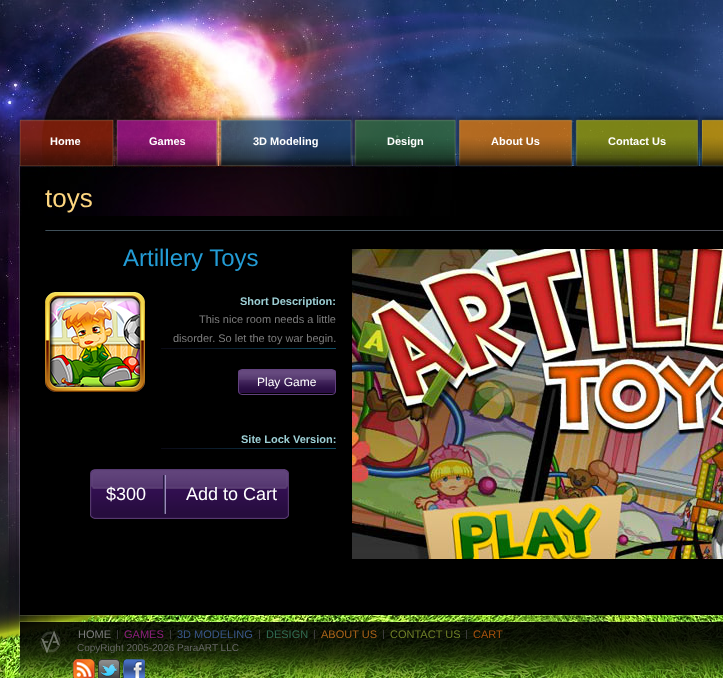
<svg xmlns="http://www.w3.org/2000/svg" width="723" height="678">
	<rect width="100%" height="100%" fill="#FFFFFF" />
	<image x="0" y="0" width="723" height="643" href="assets/img1.png" />
	<image x="17" y="115" width="5" height="52" href="assets/img2.png" />
	<image x="22" y="115" width="87" height="52" href="assets/img3.png" />
	<text x="50" y="145" font-family="Liberation Sans" font-size="11" font-weight="700" fill="#FFFFFF">Home</text>
	<image x="109" y="117" width="5" height="50" href="assets/img4.png" />
	<image x="115" y="116" width="6" height="51" href="assets/img5.png" />
	<image x="121" y="115" width="92" height="52" href="assets/img6.png" />
	<text x="149" y="145" font-family="Liberation Sans" font-size="11" font-weight="700" fill="#FFFFFF">Games</text>
	<image x="213" y="115" width="5" height="52" href="assets/img7.png" />
	<image x="219" y="115" width="6" height="52" href="assets/img8.png" />
	<image x="225" y="115" width="122" height="52" href="assets/img9.png" />
	<text x="253" y="145" font-family="Liberation Sans" font-size="11" font-weight="700" fill="#FFFFFF">3D Modeling</text>
	<image x="347" y="115" width="5" height="52" href="assets/img10.png" />
	<image x="353" y="115" width="6" height="52" href="assets/img11.png" />
	<image x="359" y="115" width="92" height="52" href="assets/img12.png" />
	<text x="387" y="145" font-family="Liberation Sans" font-size="11" font-weight="700" fill="#FFFFFF">Design</text>
	<image x="451" y="115" width="5" height="52" href="assets/img13.png" />
	<image x="457" y="115" width="6" height="52" href="assets/img14.png" />
	<image x="463" y="115" width="105" height="52" href="assets/img15.png" />
	<text x="491" y="145" font-family="Liberation Sans" font-size="11" font-weight="700" fill="#FFFFFF">About Us</text>
	<image x="568" y="115" width="6" height="52" href="assets/img16.png" />
	<image x="574" y="115" width="6" height="52" href="assets/img17.png" />
	<image x="580" y="115" width="114" height="52" href="assets/img18.png" />
	<text x="608" y="145" font-family="Liberation Sans" font-size="11" font-weight="700" fill="#FFFFFF">Contact Us</text>
	<image x="694" y="115" width="5" height="52" href="assets/img19.png" />
	<image x="700" y="115" width="6" height="52" href="assets/img20.png" />
	<image x="706" y="115" width="17" height="52" href="assets/img21.png" />
	<text x="45" y="207" font-family="Liberation Sans" font-size="26" fill="#FDD680">toys</text>
	<image x="0" y="216" width="723" height="462" href="assets/img28.png" />
	<image x="45" y="230" width="678" height="1" href="assets/img22.png" />
	<text x="123" y="266" font-family="Liberation Sans" font-size="24" fill="#239CD5">Artillery Toys</text>
	<image x="45" y="292" width="100" height="100" href="assets/img23.png" />
	<text x="240" y="305" font-family="Liberation Sans" font-size="11" font-weight="700" fill="#9CCED4">Short Description:</text>
	<image x="161" y="348" width="175" height="1" href="assets/img24.png" />
	<g font-family="Liberation Sans" font-size="11" fill="#7D7D7D">
		<text x="199" y="323">This nice room needs a little</text>
		<text x="173" y="342">disorder. So let the toy war begin.</text>
	</g>
	<image x="238" y="370" width="98" height="23" href="assets/img25.png" />
	<rect x="238.5" y="369.5" width="97" height="25" rx="3.5" fill="none" stroke="#62417E" />
	<text x="257" y="386" font-family="Liberation Sans" font-size="12" fill="#FFFFFF">Play Game</text>
	<image x="161" y="448" width="175" height="1" href="assets/img24.png" />
	<text x="241" y="443" font-family="Liberation Sans" font-size="11" font-weight="700" fill="#9CCED4">Site Lock Version:</text>
	<image x="90" y="469" width="199" height="50" href="assets/img26.png" />
	<g font-family="Liberation Sans" font-size="18" fill="#FFFFFF">
		<text x="106" y="500">$300</text>
		<text x="186" y="500">Add to Cart</text>
	</g>
	<image x="352" y="249" width="371" height="310" href="assets/img27.png" />
	<image x="40" y="630" width="21" height="24" href="assets/img29.png" />
	<text x="78" y="638" font-family="Liberation Sans" font-size="11" fill="#7D7D7D">HOME</text>
	<rect x="117" y="630" width="1" height="9" fill="#3C3C3C" />
	<text x="124" y="638" font-family="Liberation Sans" font-size="11" fill="#8F207D">GAMES</text>
	<rect x="170" y="630" width="1" height="9" fill="#3C3C3C" />
	<text x="177" y="638" font-family="Liberation Sans" font-size="11" fill="#3B588B">3D MODELING</text>
	<rect x="259" y="630" width="1" height="9" fill="#3C3C3C" />
	<text x="266" y="638" font-family="Liberation Sans" font-size="11" fill="#326D53">DESIGN</text>
	<rect x="314" y="630" width="1" height="9" fill="#3C3C3C" />
	<text x="321" y="638" font-family="Liberation Sans" font-size="11" fill="#AB6418">ABOUT US</text>
	<rect x="383" y="630" width="1" height="9" fill="#3C3C3C" />
	<text x="390" y="638" font-family="Liberation Sans" font-size="11" fill="#6F8027">CONTACT US</text>
	<rect x="466" y="630" width="1" height="9" fill="#3C3C3C" />
	<text x="473" y="638" font-family="Liberation Sans" font-size="11" fill="#A9530D">CART</text>
	<text x="77" y="651" font-family="Liberation Sans" font-size="10" fill="#666666">CopyRight 2005-2026 ParaART LLC</text>
	<image x="73" y="659" width="22" height="19" href="assets/img30.png" />
	<image x="98" y="659" width="22" height="19" href="assets/img31.png" />
	<image x="123" y="659" width="22" height="19" href="assets/img32.png" />
</svg>
